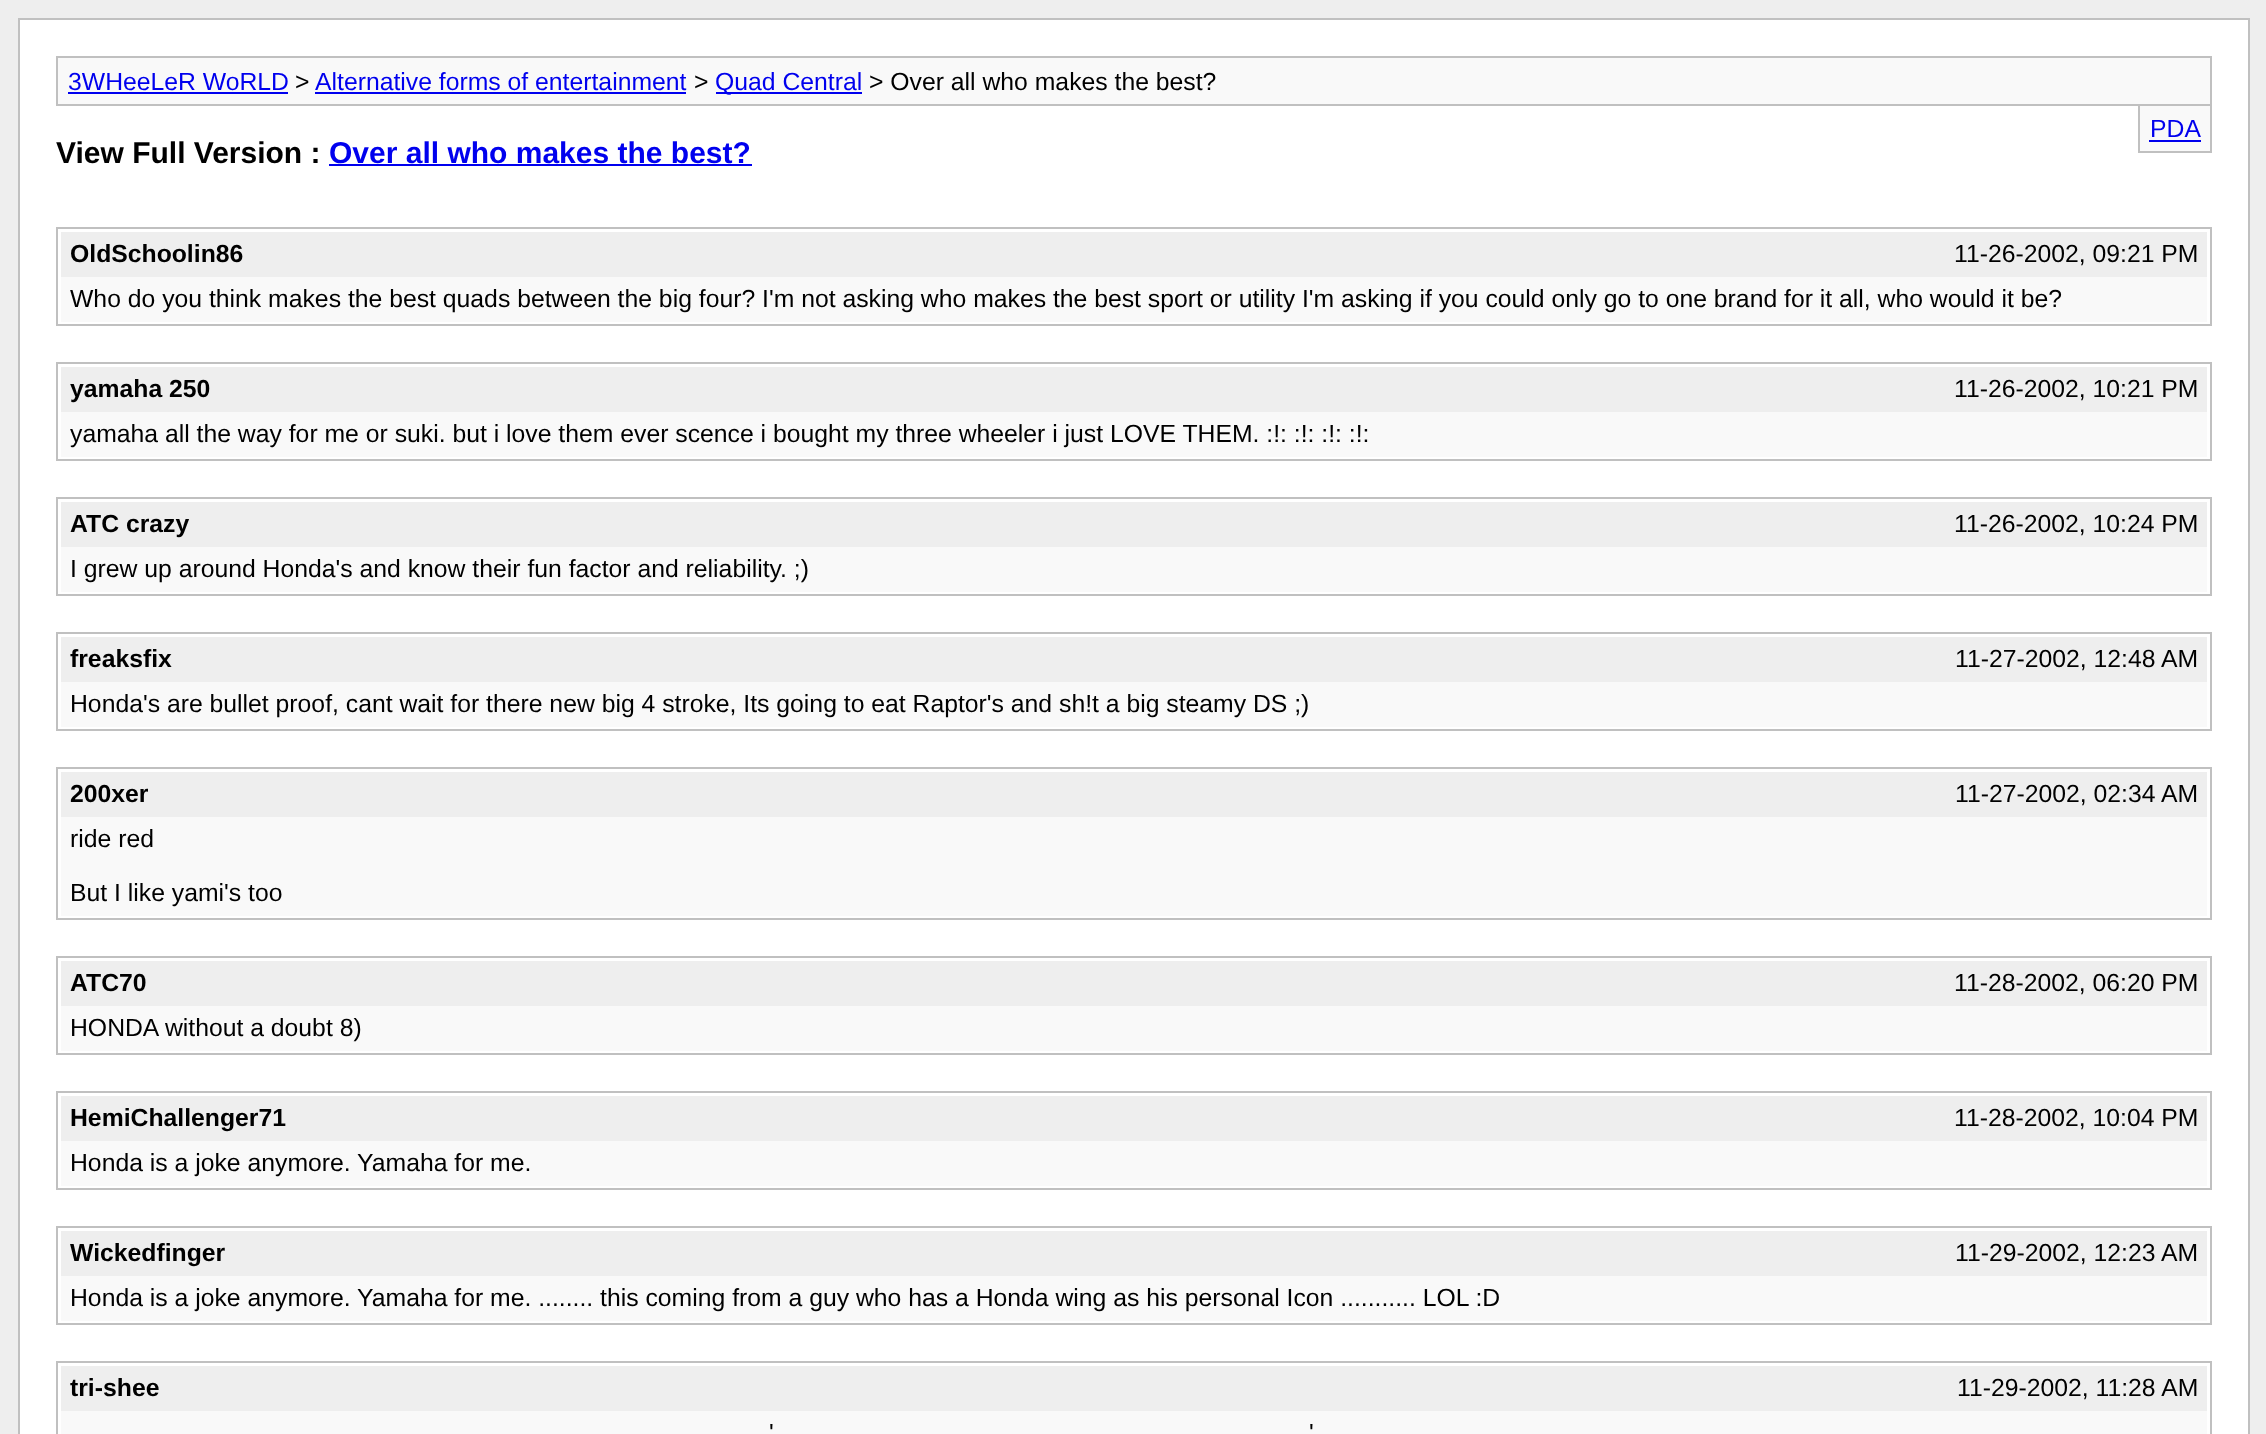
<svg xmlns="http://www.w3.org/2000/svg" width="2266" height="1434">
	<rect width="100%" height="100%" fill="#EEEEEE" />
	<rect x="19" y="19" width="2230" height="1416" fill="#FFFFFF" stroke="#C0C0C0" stroke-width="2" />
	<rect x="57" y="57" width="2154" height="48" fill="#F9F9F9" stroke="#C0C0C0" stroke-width="2" />
	<text x="68" y="90" font-family="Liberation Sans" font-size="24.75" fill="#0000EE">3WHeeLeR WoRLD</text>
	<rect x="68" y="92" width="220" height="2" fill="#0000EE" />
	<text x="295" y="90" font-family="Liberation Sans" font-size="24.75" fill="#000000">&gt;</text>
	<text x="315" y="90" font-family="Liberation Sans" font-size="24.75" fill="#0000EE">Alternative forms of entertainment</text>
	<rect x="315" y="92" width="371" height="2" fill="#0000EE" />
	<text x="694" y="90" font-family="Liberation Sans" font-size="24.75" fill="#000000">&gt;</text>
	<rect x="716" y="92" width="146" height="2" fill="#0000EE" />
	<text x="715" y="90" font-family="Liberation Sans" font-size="24.75" fill="#0000EE">Quad Central</text>
	<text x="869" y="90" font-family="Liberation Sans" font-size="24.75" fill="#000000">&gt; Over all who makes the best?</text>
	<rect x="2140" y="106" width="70" height="45" fill="#F9F9F9" />
	<rect x="2210" y="106" width="2" height="47" fill="#C0C0C0" />
	<rect x="2138" y="151" width="74" height="2" fill="#C0C0C0" />
	<rect x="2138" y="106" width="2" height="47" fill="#C0C0C0" />
	<text x="2150" y="137" font-family="Liberation Sans" font-size="24.75" fill="#0000EE">PDA</text>
	<rect x="2149" y="140" width="52" height="2" fill="#0000EE" />
	<text x="56" y="163" font-family="Liberation Sans" font-size="30" font-weight="700" fill="#000000">View Full Version :</text>
	<text x="329" y="163" font-family="Liberation Sans" font-size="30" font-weight="700" fill="#0000EE">Over all who makes the best?</text>
	<rect x="329" y="164" width="423" height="2" fill="#0000EE" />
	<rect x="57" y="228" width="2154" height="97" fill="none" stroke="#C0C0C0" stroke-width="2" />
	<rect x="61" y="232" width="2146" height="45" fill="#EEEEEE" />
	<text x="70" y="262" font-family="Liberation Sans" font-size="24.75" font-weight="700" fill="#000000">OldSchoolin86</text>
	<text x="1954" y="262" font-family="Liberation Sans" font-size="24.75" fill="#000000">11-26-2002, 09:21 PM</text>
	<rect x="61" y="277" width="2146" height="45" fill="#F9F9F9" />
	<text x="70" y="307" font-family="Liberation Sans" font-size="24.75" fill="#000000">Who do you think makes the best quads between the big four? I'm not asking who makes the best sport or utility I'm asking if you could only go to one brand for it all, who would it be?</text>
	<rect x="57" y="363" width="2154" height="97" fill="none" stroke="#C0C0C0" stroke-width="2" />
	<rect x="61" y="367" width="2146" height="45" fill="#EEEEEE" />
	<text x="70" y="397" font-family="Liberation Sans" font-size="24.75" font-weight="700" fill="#000000">yamaha 250</text>
	<text x="1954" y="397" font-family="Liberation Sans" font-size="24.75" fill="#000000">11-26-2002, 10:21 PM</text>
	<rect x="61" y="412" width="2146" height="45" fill="#F9F9F9" />
	<text x="70" y="442" font-family="Liberation Sans" font-size="24.75" fill="#000000">yamaha all the way for me or suki. but i love them ever scence i bought my three wheeler i just LOVE THEM. :!: :!: :!: :!:</text>
	<rect x="57" y="498" width="2154" height="97" fill="none" stroke="#C0C0C0" stroke-width="2" />
	<rect x="61" y="502" width="2146" height="45" fill="#EEEEEE" />
	<text x="70" y="532" font-family="Liberation Sans" font-size="24.75" font-weight="700" fill="#000000">ATC crazy</text>
	<text x="1954" y="532" font-family="Liberation Sans" font-size="24.75" fill="#000000">11-26-2002, 10:24 PM</text>
	<rect x="61" y="547" width="2146" height="45" fill="#F9F9F9" />
	<text x="70" y="577" font-family="Liberation Sans" font-size="24.75" fill="#000000">I grew up around Honda's and know their fun factor and reliability. ;)</text>
	<rect x="57" y="633" width="2154" height="97" fill="none" stroke="#C0C0C0" stroke-width="2" />
	<rect x="61" y="637" width="2146" height="45" fill="#EEEEEE" />
	<text x="70" y="667" font-family="Liberation Sans" font-size="24.75" font-weight="700" fill="#000000">freaksfix</text>
	<text x="1955" y="667" font-family="Liberation Sans" font-size="24.75" fill="#000000">11-27-2002, 12:48 AM</text>
	<rect x="61" y="682" width="2146" height="45" fill="#F9F9F9" />
	<text x="70" y="712" font-family="Liberation Sans" font-size="24.75" fill="#000000">Honda's are bullet proof, cant wait for there new big 4 stroke, Its going to eat Raptor's and sh!t a big steamy DS ;)</text>
	<rect x="57" y="768" width="2154" height="151" fill="none" stroke="#C0C0C0" stroke-width="2" />
	<rect x="61" y="772" width="2146" height="45" fill="#EEEEEE" />
	<text x="70" y="802" font-family="Liberation Sans" font-size="24.75" font-weight="700" fill="#000000">200xer</text>
	<text x="1955" y="802" font-family="Liberation Sans" font-size="24.75" fill="#000000">11-27-2002, 02:34 AM</text>
	<rect x="61" y="817" width="2146" height="99" fill="#F9F9F9" />
	<g font-family="Liberation Sans" font-size="24.75" fill="#000000">
		<text x="70" y="847">ride red</text>
		<text x="70" y="901">But I like yami's too</text>
	</g>
	<rect x="57" y="957" width="2154" height="97" fill="none" stroke="#C0C0C0" stroke-width="2" />
	<rect x="61" y="961" width="2146" height="45" fill="#EEEEEE" />
	<text x="70" y="991" font-family="Liberation Sans" font-size="24.75" font-weight="700" fill="#000000">ATC70</text>
	<text x="1954" y="991" font-family="Liberation Sans" font-size="24.75" fill="#000000">11-28-2002, 06:20 PM</text>
	<rect x="61" y="1006" width="2146" height="45" fill="#F9F9F9" />
	<text x="70" y="1036" font-family="Liberation Sans" font-size="24.75" fill="#000000">HONDA without a doubt 8)</text>
	<rect x="57" y="1092" width="2154" height="97" fill="none" stroke="#C0C0C0" stroke-width="2" />
	<rect x="61" y="1096" width="2146" height="45" fill="#EEEEEE" />
	<text x="70" y="1126" font-family="Liberation Sans" font-size="24.75" font-weight="700" fill="#000000">HemiChallenger71</text>
	<text x="1954" y="1126" font-family="Liberation Sans" font-size="24.75" fill="#000000">11-28-2002, 10:04 PM</text>
	<rect x="61" y="1141" width="2146" height="45" fill="#F9F9F9" />
	<text x="70" y="1171" font-family="Liberation Sans" font-size="24.75" fill="#000000">Honda is a joke anymore. Yamaha for me.</text>
	<rect x="57" y="1227" width="2154" height="97" fill="none" stroke="#C0C0C0" stroke-width="2" />
	<rect x="61" y="1231" width="2146" height="45" fill="#EEEEEE" />
	<text x="70" y="1261" font-family="Liberation Sans" font-size="24.75" font-weight="700" fill="#000000">Wickedfinger</text>
	<text x="1955" y="1261" font-family="Liberation Sans" font-size="24.75" fill="#000000">11-29-2002, 12:23 AM</text>
	<rect x="61" y="1276" width="2146" height="45" fill="#F9F9F9" />
	<text x="70" y="1306" font-family="Liberation Sans" font-size="24.75" fill="#000000">Honda is a joke anymore. Yamaha for me. ........ this coming from a guy who has a Honda wing as his personal Icon ........... LOL :D</text>
	<rect x="57" y="1362" width="2154" height="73" fill="none" stroke="#C0C0C0" stroke-width="2" />
	<rect x="61" y="1366" width="2146" height="45" fill="#EEEEEE" />
	<text x="70" y="1396" font-family="Liberation Sans" font-size="24.75" font-weight="700" fill="#000000">tri-shee</text>
	<text x="1957" y="1396" font-family="Liberation Sans" font-size="24.75" fill="#000000">11-29-2002, 11:28 AM</text>
	<rect x="61" y="1411" width="2146" height="23" fill="#F9F9F9" />
	<g font-family="Liberation Sans" font-size="24.75" fill="#000000">
		<text x="769" y="1441">'</text>
		<text x="1309" y="1441">'</text>
	</g>
</svg>
